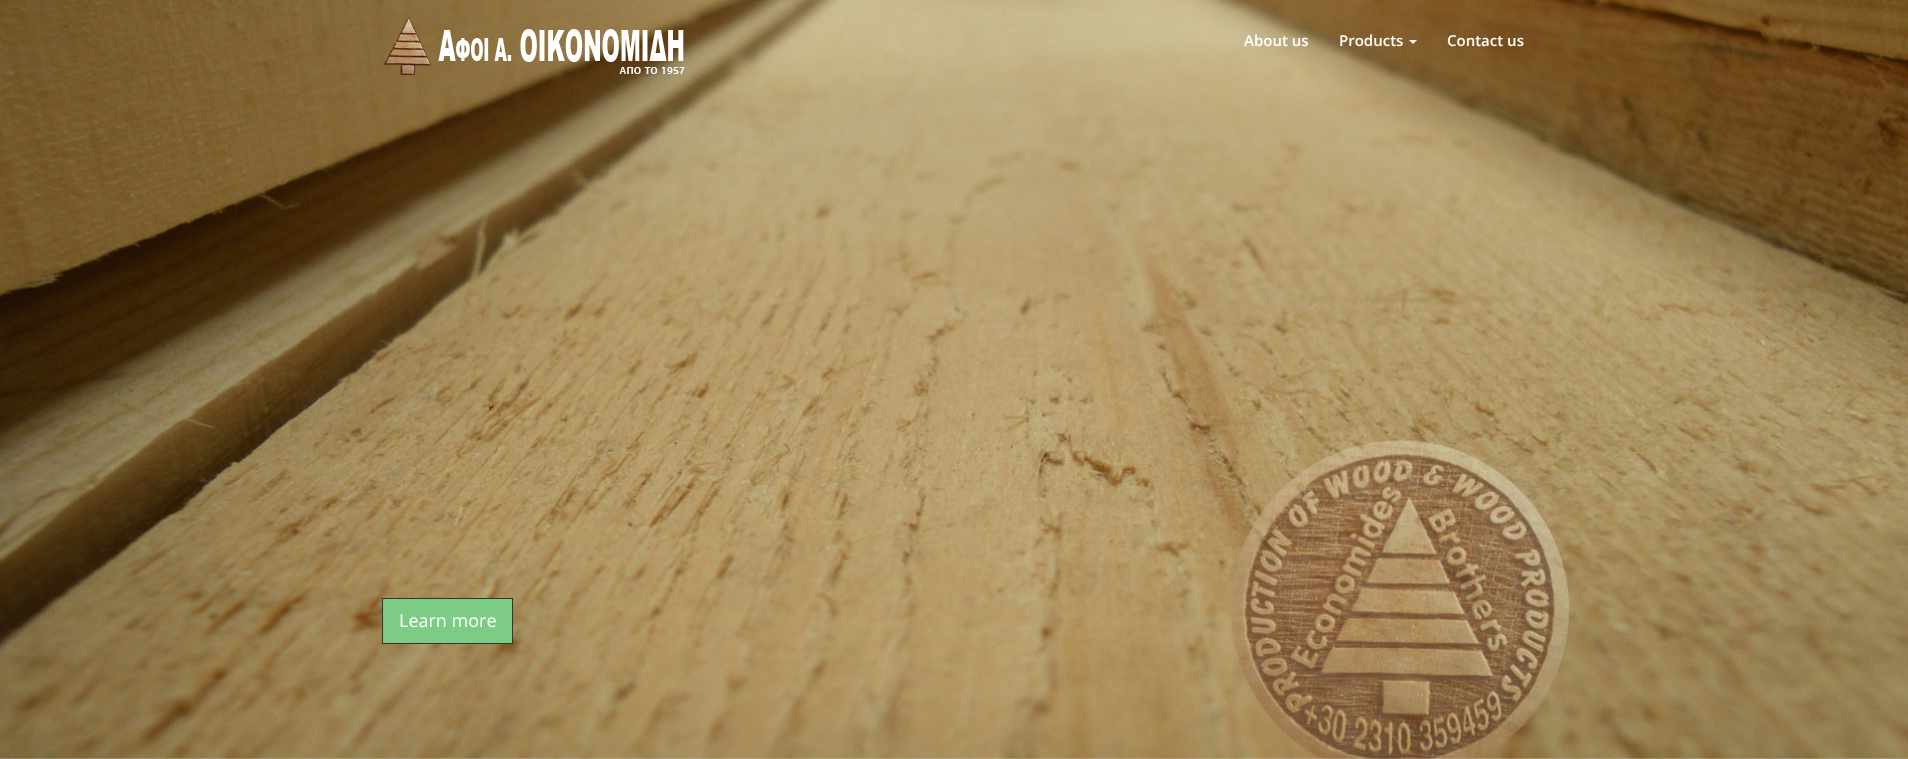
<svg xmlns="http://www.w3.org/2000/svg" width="1908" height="759">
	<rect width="100%" height="100%" fill="#FFFFFF" />
	<image x="0" y="758" width="1908" height="1" href="assets/img1.png" />
	<image x="0" y="0" width="1908" height="759" href="assets/img3.png" />
	<image x="384" y="17" width="301" height="58" href="assets/img2.png" />
	<g font-family="Open Sans" font-size="15" font-weight="600" fill="#FFFFFF">
		<text x="1244" y="46">About us</text>
		<text x="1339" y="46">Products</text>
	</g>
	<path d="M1409 40H1417L1413 44Z" fill="#FFFFFF" />
	<text x="1447" y="46" font-family="Open Sans" font-size="15" font-weight="600" fill="#FFFFFF">Contact us</text>
	<rect x="382.5" y="598.5" width="130" height="45" fill="#7DCC85" stroke="#333333" />
	<text x="399" y="627" font-family="Open Sans" font-size="18" fill="#FFFFFF">Learn more</text>
</svg>
